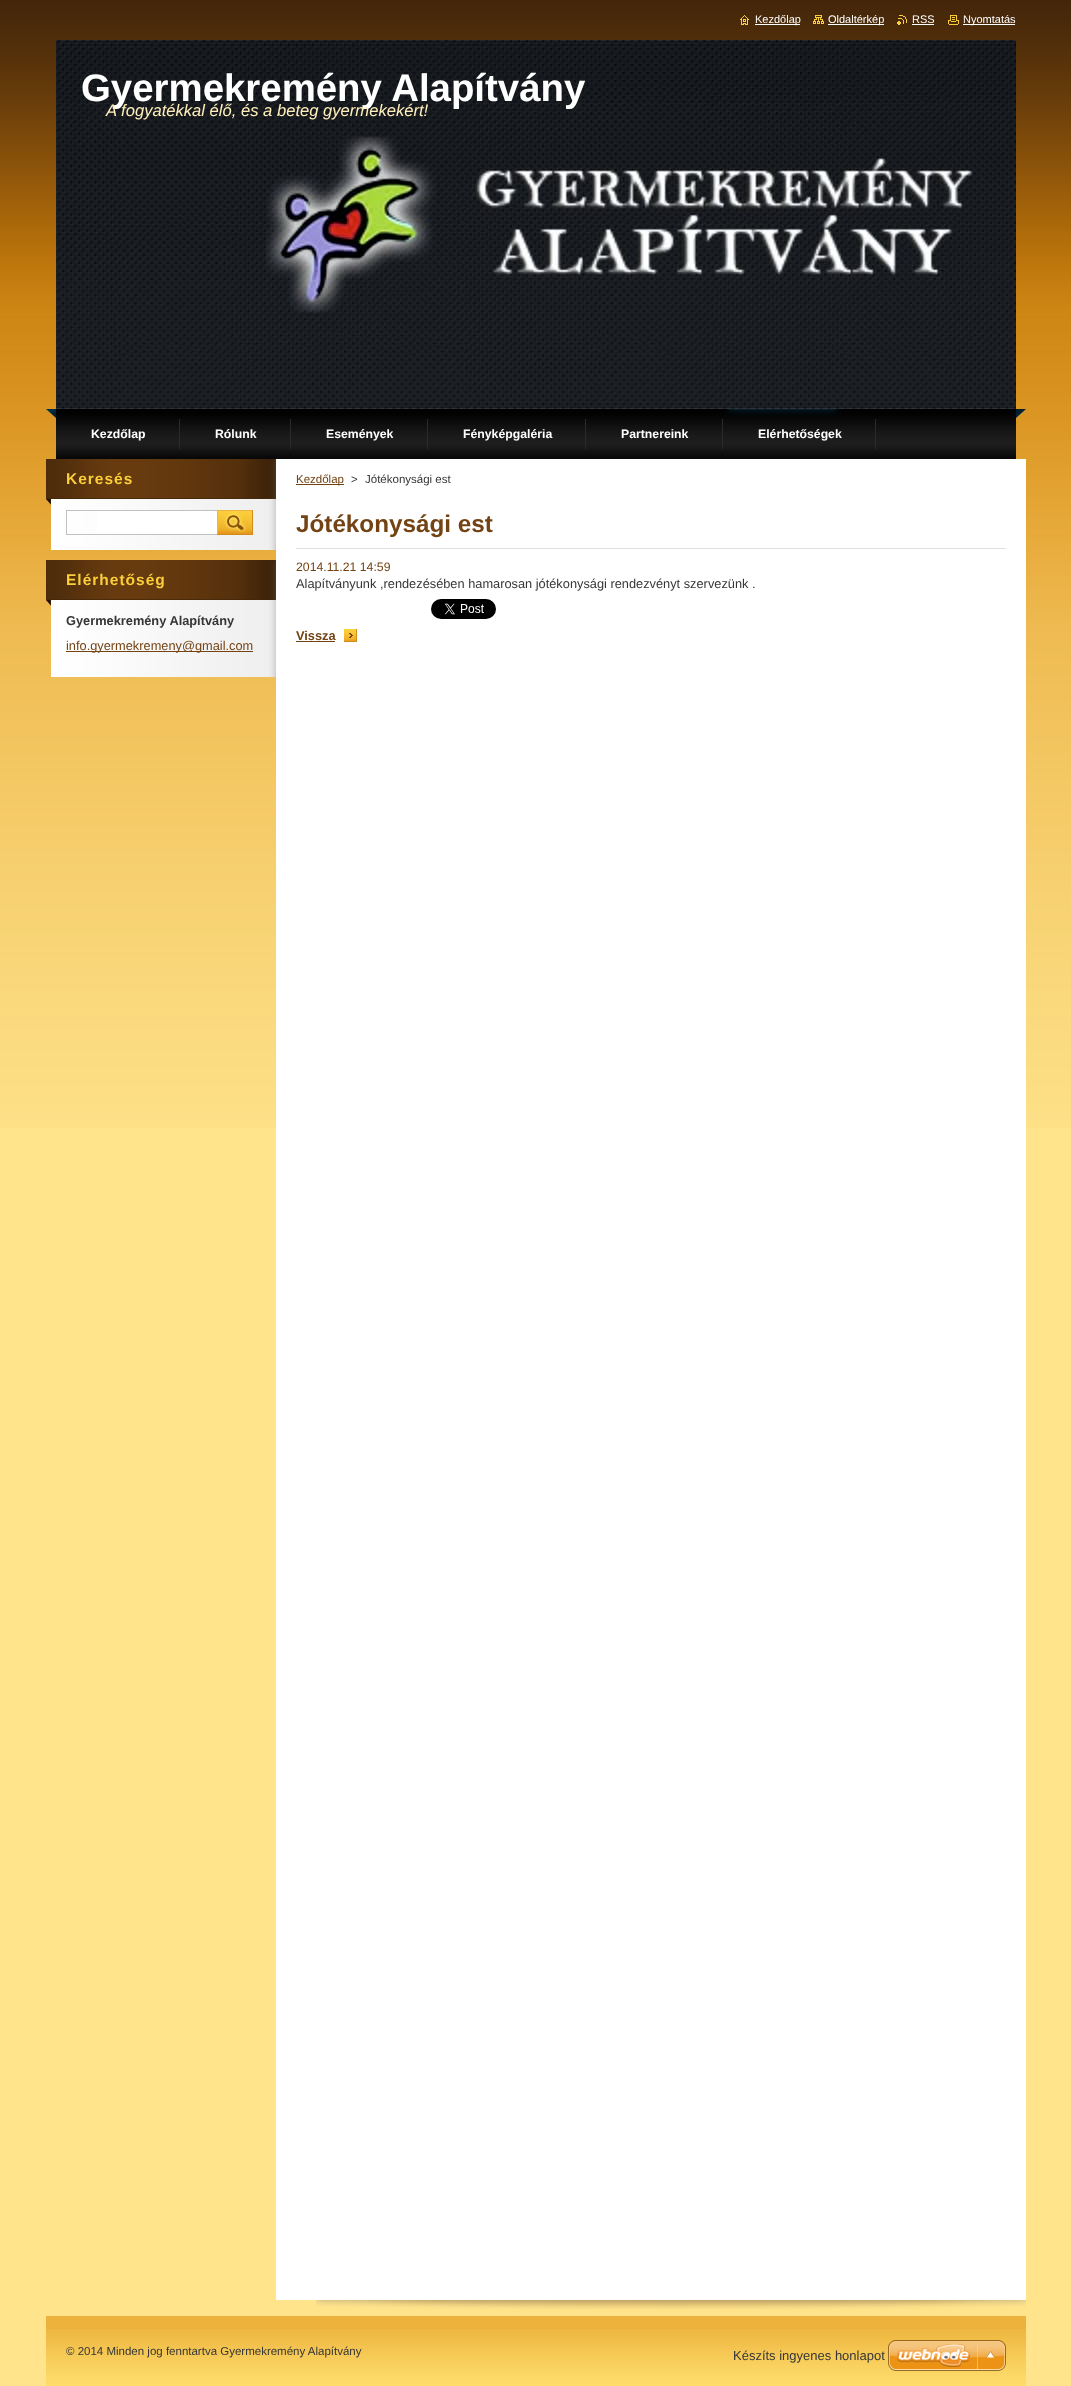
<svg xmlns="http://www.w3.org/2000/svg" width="1071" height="2386">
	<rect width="100%" height="100%" fill="#FFE48C" />
	<image x="0" y="0" width="1071" height="1128" href="assets/img1.png" />
	<image x="740" y="15" width="9" height="10" href="assets/img2.png" />
	<rect x="755" y="24" width="45" height="1" fill="#FFFFFF" />
	<text x="755" y="23" font-family="Liberation Sans" font-size="11" fill="#FFFFFF">Kezdőlap</text>
	<image x="813" y="15" width="11" height="9" href="assets/img3.png" />
	<rect x="828" y="24" width="56" height="1" fill="#FFFFFF" />
	<text x="828" y="23" font-family="Liberation Sans" font-size="11" fill="#FFFFFF">Oldaltérkép</text>
	<image x="897" y="15" width="10" height="10" href="assets/img4.png" />
	<text x="912" y="23" font-family="Liberation Sans" font-size="11" fill="#FFFFFF">RSS</text>
	<rect x="912" y="24" width="22" height="1" fill="#FFFFFF" />
	<image x="948" y="15" width="11" height="10" href="assets/img5.png" />
	<rect x="963" y="24" width="52" height="1" fill="#FFFFFF" />
	<text x="963" y="23" font-family="Liberation Sans" font-size="11" fill="#FFFFFF">Nyomtatás</text>
	<image x="56" y="40" width="960" height="369" href="assets/img6.png" />
	<text x="81" y="101" font-family="Liberation Sans" font-size="38.4" font-weight="700" fill="#FFFFFF">Gyermekremény Alapítvány</text>
	<text x="106" y="116" font-family="Liberation Sans" font-size="16.6" font-style="italic" fill="#FFEFBA">A fogyatékkal élő, és a beteg gyermekekért!</text>
	<image x="46" y="409" width="980" height="50" href="assets/img7.png" />
	<rect x="179" y="419" width="1" height="30" fill="#2A2A2A" />
	<text x="91" y="438" font-family="Liberation Sans" font-size="12.25" font-weight="700" fill="#FFFFFF">Kezdőlap</text>
	<rect x="290" y="419" width="1" height="30" fill="#2A2A2A" />
	<text x="215" y="438" font-family="Liberation Sans" font-size="12.25" font-weight="700" fill="#FFFFFF">Rólunk</text>
	<rect x="427" y="419" width="1" height="30" fill="#2A2A2A" />
	<text x="326" y="438" font-family="Liberation Sans" font-size="12.25" font-weight="700" fill="#FFFFFF">Események</text>
	<rect x="585" y="419" width="1" height="30" fill="#2A2A2A" />
	<text x="463" y="438" font-family="Liberation Sans" font-size="12.25" font-weight="700" fill="#FFFFFF">Fényképgaléria</text>
	<rect x="722" y="419" width="1" height="30" fill="#2A2A2A" />
	<text x="621" y="438" font-family="Liberation Sans" font-size="12.25" font-weight="700" fill="#FFFFFF">Partnereink</text>
	<rect x="875" y="419" width="1" height="30" fill="#2A2A2A" />
	<text x="758" y="438" font-family="Liberation Sans" font-size="12.25" font-weight="700" fill="#FFFFFF">Elérhetőségek</text>
	<image x="51" y="505" width="225" height="45" href="assets/img8.png" />
	<image x="46" y="459" width="230" height="46" href="assets/img9.png" />
	<text x="66" y="484" font-family="Liberation Sans" font-size="15.5" font-weight="700" letter-spacing="1" fill="#FBCF3C">Keresés</text>
	<rect x="97" y="511" width="120" height="23" fill="#FFFFFF" />
	<rect x="66.5" y="510.5" width="151" height="24" fill="none" stroke="#C1C1C1" />
	<image x="217" y="510" width="36" height="25" href="assets/img10.png" />
	<image x="51" y="606" width="225" height="71" href="assets/img11.png" />
	<image x="46" y="560" width="230" height="46" href="assets/img12.png" />
	<text x="66" y="585" font-family="Liberation Sans" font-size="15.5" font-weight="700" letter-spacing="1" fill="#FBCF3C">Elérhetőség</text>
	<text x="66" y="625" font-family="Liberation Sans" font-size="12.8" font-weight="700" fill="#363636">Gyermekremény Alapítvány</text>
	<rect x="66" y="651" width="187" height="1" fill="#734314" />
	<text x="66" y="650" font-family="Liberation Sans" font-size="12.8" fill="#734314">info.gyermekremeny@gmail.com</text>
	<image x="316" y="2300" width="710" height="10" href="assets/img13.png" />
	<rect x="276" y="459" width="750" height="1841" fill="#FFFFFF" />
	<rect x="296" y="484" width="48" height="1" fill="#734314" />
	<text x="296" y="483" font-family="Liberation Sans" font-size="11.5" fill="#734314">Kezdőlap</text>
	<g font-family="Liberation Sans" font-size="11.5" fill="#363636">
		<text x="351" y="483">&gt;</text>
		<text x="365" y="483">Jótékonysági est</text>
	</g>
	<rect x="296" y="548" width="710" height="1" fill="#E1E1E1" />
	<text x="296" y="532" font-family="Liberation Sans" font-size="24.25" font-weight="700" fill="#734314">Jótékonysági est</text>
	<text x="296" y="571" font-family="Liberation Sans" font-size="12.25" fill="#734314">2014.11.21 14:59</text>
	<text x="296" y="588" font-family="Liberation Sans" font-size="12.8" fill="#363636">Alapítványunk ,rendezésében hamarosan jótékonysági rendezvényt szervezünk .</text>
	<image x="431" y="599" width="65" height="20" href="assets/img14.png" />
	<image x="344" y="629" width="13" height="13" href="assets/img15.png" />
	<text x="296" y="640" font-family="Liberation Sans" font-size="12.8" font-weight="700" fill="#734314">Vissza</text>
	<rect x="296" y="641" width="39" height="1" fill="#734314" />
	<rect x="46" y="2316" width="980" height="13" fill="#EDB23C" />
	<image x="46" y="2329" width="980" height="57" href="assets/img16.png" />
	<text x="66" y="2355" font-family="Liberation Sans" font-size="11.5" fill="#363636">© 2014 Minden jog fenntartva Gyermekremény Alapítvány</text>
	<text x="733" y="2360" font-family="Liberation Sans" font-size="13" fill="#363636">Készíts ingyenes honlapot</text>
	<image x="888" y="2340" width="118" height="31" href="assets/img17.png" />
</svg>
